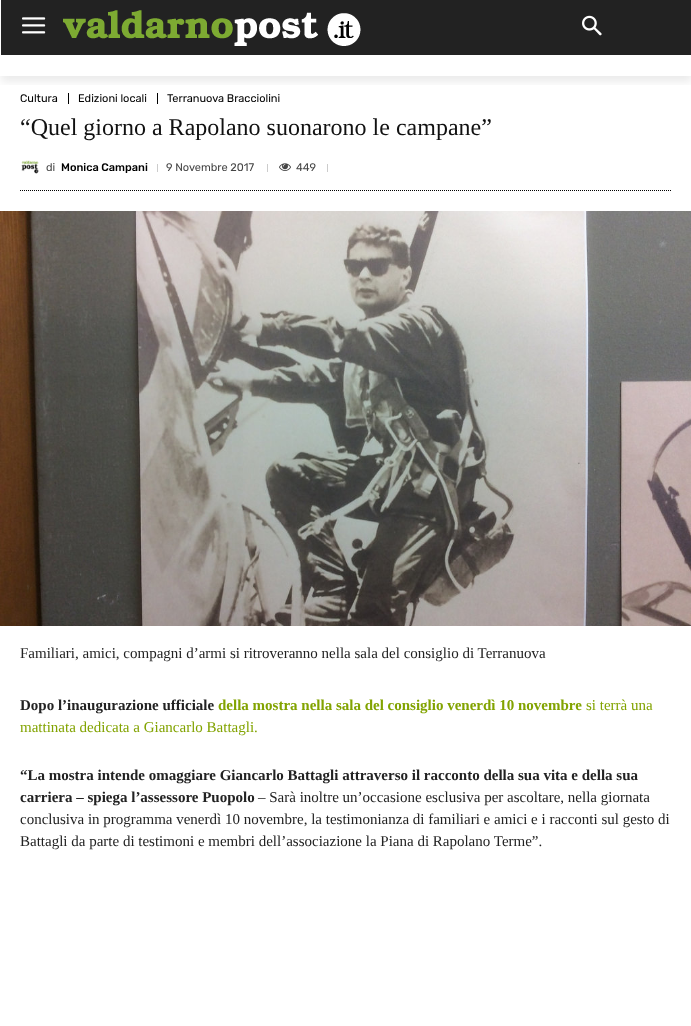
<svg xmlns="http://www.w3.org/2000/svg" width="691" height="1026">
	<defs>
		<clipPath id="clip1"><rect x="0" y="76" width="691" height="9" /></clipPath>
	</defs>
	<rect width="100%" height="100%" fill="#FFFFFF" />
	<rect x="1" y="0" width="690" height="55" fill="#222222" />
	<image x="22" y="17" width="24" height="17" href="assets/img1.png" />
	<image x="63" y="10" width="298" height="36" href="assets/img2.png" />
	<image x="582" y="15" width="20" height="21" href="assets/img3.png" />
	<rect x="68" y="93" width="1" height="11" fill="#000000" />
	<rect x="157" y="93" width="1" height="11" fill="#000000" />
	<g clip-path="url(#clip1)">
		<rect x="1" y="6" width="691" height="76" fill="#000000" fill-opacity="0.08" filter="blur(4px)" />
	</g>
	<g font-family="Rubik" font-size="11" fill="#000000">
		<text x="20" y="102">Cultura</text>
		<text x="78" y="102">Edizioni locali</text>
		<text x="167" y="102">Terranuova Bracciolini</text>
	</g>
	<text x="20" y="135" font-family="Liberation Serif" font-size="24" fill="#111111">“Quel giorno a Rapolano suonarono le campane”</text>
	<image x="21" y="160" width="18" height="14" href="assets/img4.png" />
	<text x="46" y="171" font-family="Rubik" font-size="11" fill="#444444">di</text>
	<text x="61" y="171" font-family="Rubik" font-size="11" font-weight="500" fill="#000000">Monica Campani</text>
	<rect x="157" y="164" width="1" height="8" fill="#CCCCCC" />
	<text x="166" y="171" font-family="Rubik" font-size="11" fill="#444444">9 Novembre 2017</text>
	<rect x="267" y="164" width="1" height="8" fill="#CCCCCC" />
	<image x="279" y="163" width="12" height="8" href="assets/img5.png" />
	<text x="296" y="171" font-family="Rubik" font-size="11" fill="#444444">449</text>
	<rect x="327" y="164" width="1" height="8" fill="#CCCCCC" />
	<path d="M20 190.5H671" fill="none" stroke="#000000" stroke-dasharray="1 1" />
	<image x="0" y="211" width="691" height="415" href="assets/img6.png" />
	<text x="20" y="658" font-family="Liberation Serif" font-size="15" fill="#222222">Familiari, amici, compagni d’armi si ritroveranno nella sala del consiglio di Terranuova</text>
	<text x="20" y="710" font-family="Liberation Serif" font-size="15" font-weight="700" fill="#222222">Dopo l’inaugurazione ufficiale</text>
	<text x="218" y="710" font-family="Liberation Serif" font-size="15" font-weight="700" fill="#82A300">della mostra nella sala del consiglio venerdì 10 novembre</text>
	<g font-family="Liberation Serif" font-size="15" fill="#82A300">
		<text x="586" y="710">si terrà una</text>
		<text x="20" y="732">mattinata dedicata a Giancarlo Battagli.</text>
	</g>
	<g font-family="Liberation Serif" font-size="15" font-weight="700" fill="#222222">
		<text x="20" y="780">“La mostra intende omaggiare Giancarlo Battagli attraverso il racconto della sua vita e della sua</text>
		<text x="20" y="802">carriera – spiega l’assessore Puopolo</text>
	</g>
	<g font-family="Liberation Serif" font-size="15" fill="#222222">
		<text x="258" y="802">– Sarà inoltre un’occasione esclusiva per ascoltare, nella giornata</text>
		<text x="20" y="824">conclusiva in programma venerdì 10 novembre, la testimonianza di familiari e amici e i racconti sul gesto di</text>
		<text x="20" y="846">Battagli da parte di testimoni e membri dell’associazione la Piana di Rapolano Terme”.</text>
	</g>
</svg>
